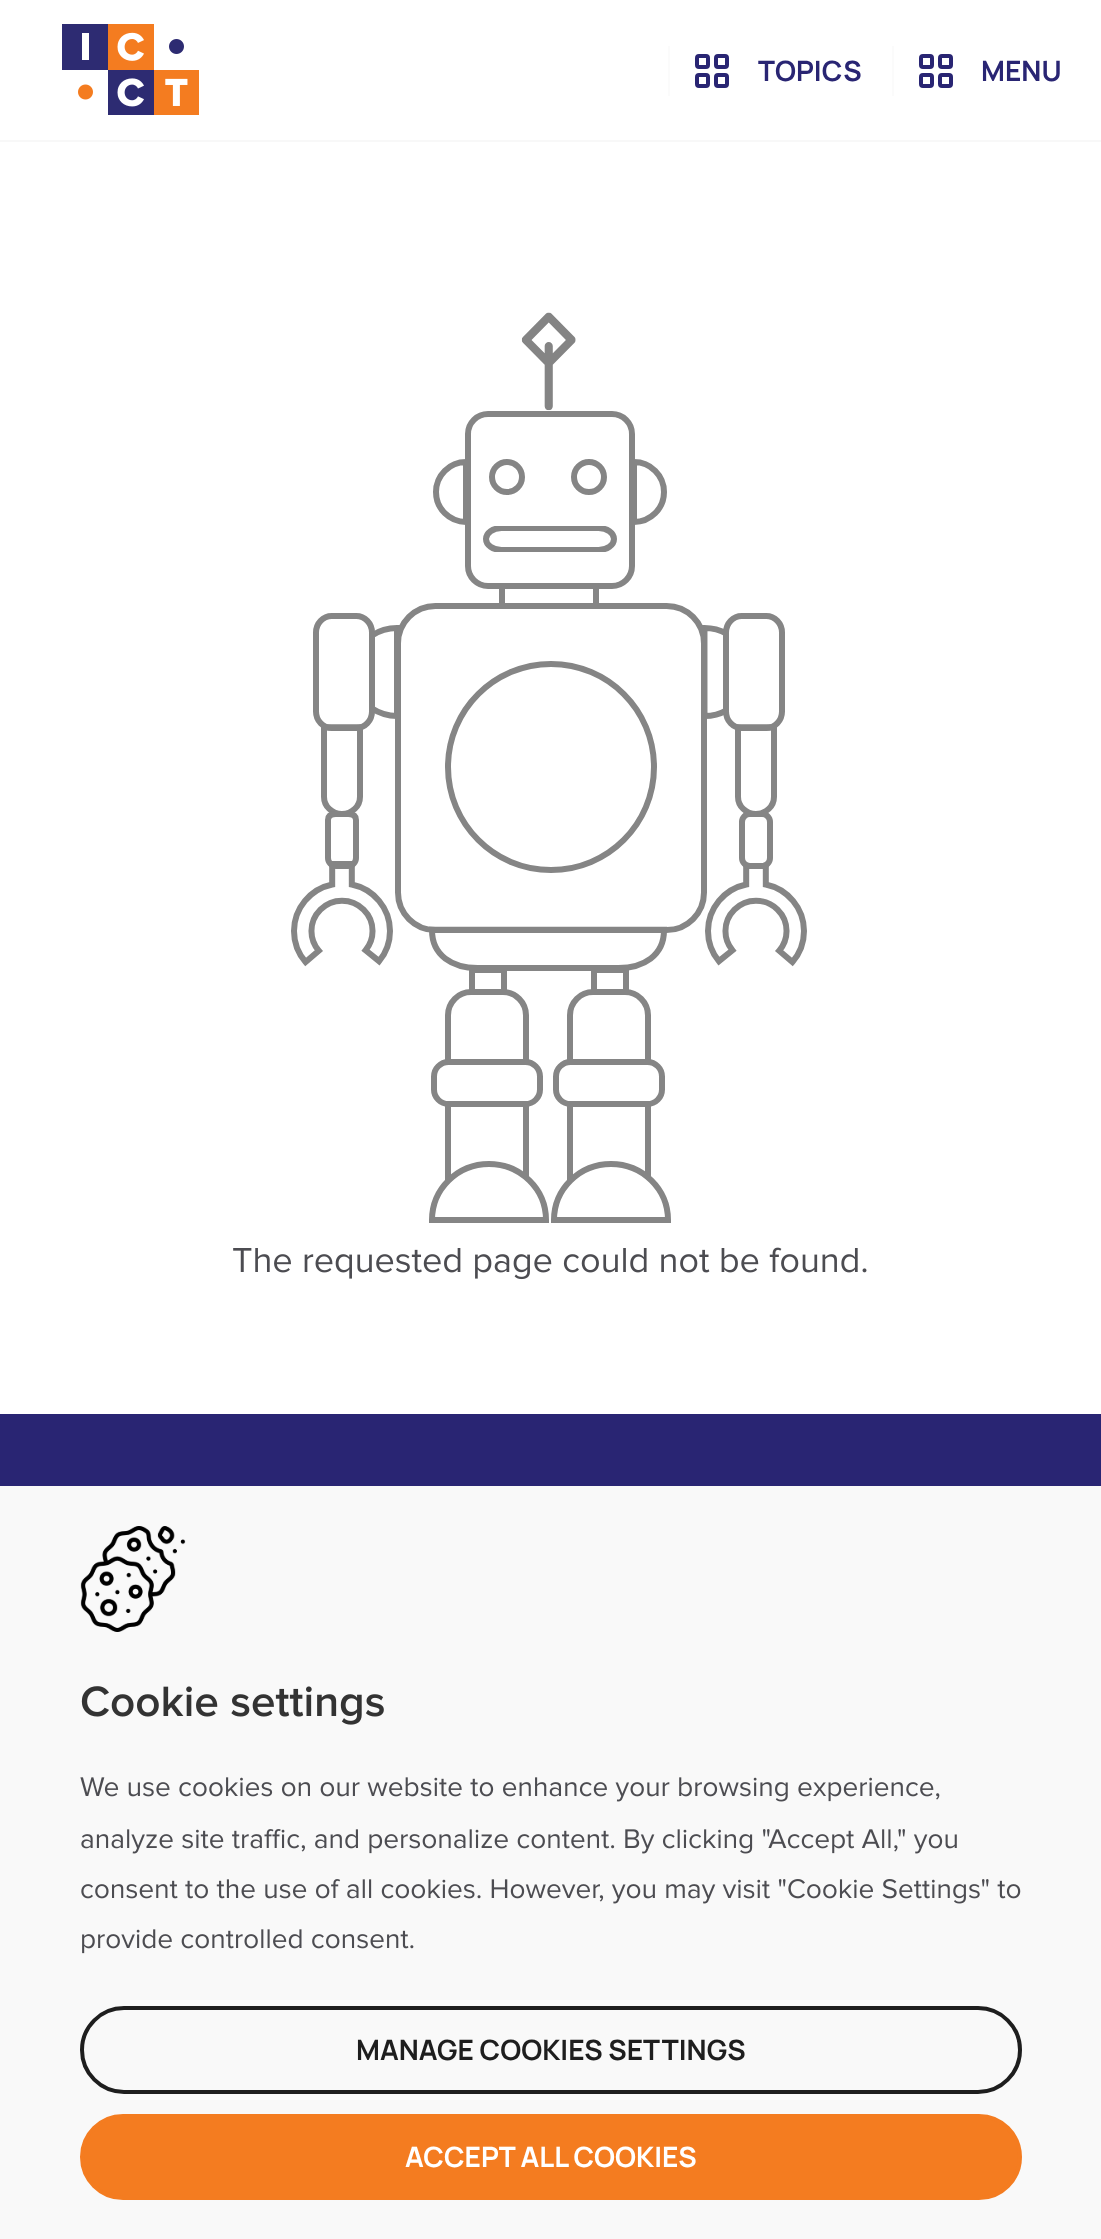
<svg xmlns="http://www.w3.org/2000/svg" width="1101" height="2239">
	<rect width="100%" height="100%" fill="#FFFFFF" />
	<rect x="0" y="140" width="1101" height="2" fill="#F8F8F8" />
	<image x="62" y="24" width="137" height="91" href="assets/img1.png" />
	<rect x="668" y="46" width="2" height="50" fill="#FBFBFB" />
	<rect x="697" y="56" width="11" height="11" rx="2" fill="none" stroke="#292573" stroke-width="4" />
	<rect x="716" y="56" width="11" height="11" rx="2" fill="none" stroke="#292573" stroke-width="4" />
	<rect x="697" y="75" width="11" height="11" rx="2" fill="none" stroke="#292573" stroke-width="4" />
	<rect x="716" y="75" width="11" height="11" rx="2" fill="none" stroke="#292573" stroke-width="4" />
	<text x="758" y="81" font-family="Manrope" font-size="28" font-weight="700" fill="#292573">TOPICS</text>
	<rect x="892" y="46" width="2" height="50" fill="#FBFBFB" />
	<rect x="921" y="56" width="11" height="11" rx="2" fill="none" stroke="#292573" stroke-width="4" />
	<rect x="940" y="56" width="11" height="11" rx="2" fill="none" stroke="#292573" stroke-width="4" />
	<rect x="921" y="75" width="11" height="11" rx="2" fill="none" stroke="#292573" stroke-width="4" />
	<rect x="940" y="75" width="11" height="11" rx="2" fill="none" stroke="#292573" stroke-width="4" />
	<text x="981" y="81" font-family="Manrope" font-size="28" font-weight="700" fill="#292573">MENU</text>
	<rect x="0" y="1414" width="1101" height="72" fill="#292573" />
	<image x="291" y="312" width="516" height="911" href="assets/img2.png" />
	<image x="233" y="1247" width="634" height="33" href="assets/img3.png" />
	<rect x="0" y="1486" width="1101" height="753" fill="#F9F9F9" />
	<image x="80" y="1526" width="106" height="106" href="assets/img4.png" />
	<image x="81" y="1686" width="303" height="39" href="assets/img5.png" />
	<image x="80" y="1777" width="860" height="25" href="assets/img6.png" />
	<image x="81" y="1829" width="876" height="25" href="assets/img7.png" />
	<image x="81" y="1879" width="940" height="25" href="assets/img8.png" />
	<image x="82" y="1929" width="332" height="25" href="assets/img9.png" />
	<rect x="82" y="2008" width="938" height="84" rx="42" fill="none" stroke="#1E1E1E" stroke-width="4" />
	<text x="356" y="2060" font-family="Manrope" font-size="28" font-weight="700" fill="#1E1E1E">MANAGE COOKIES SETTINGS</text>
	<rect x="82" y="2116" width="938" height="82" rx="41" fill="#F47C20" stroke="#F47C20" stroke-width="4" />
	<text x="405" y="2167" font-family="Manrope" font-size="28" font-weight="700" fill="#FFFFFF">ACCEPT ALL COOKIES</text>
</svg>
